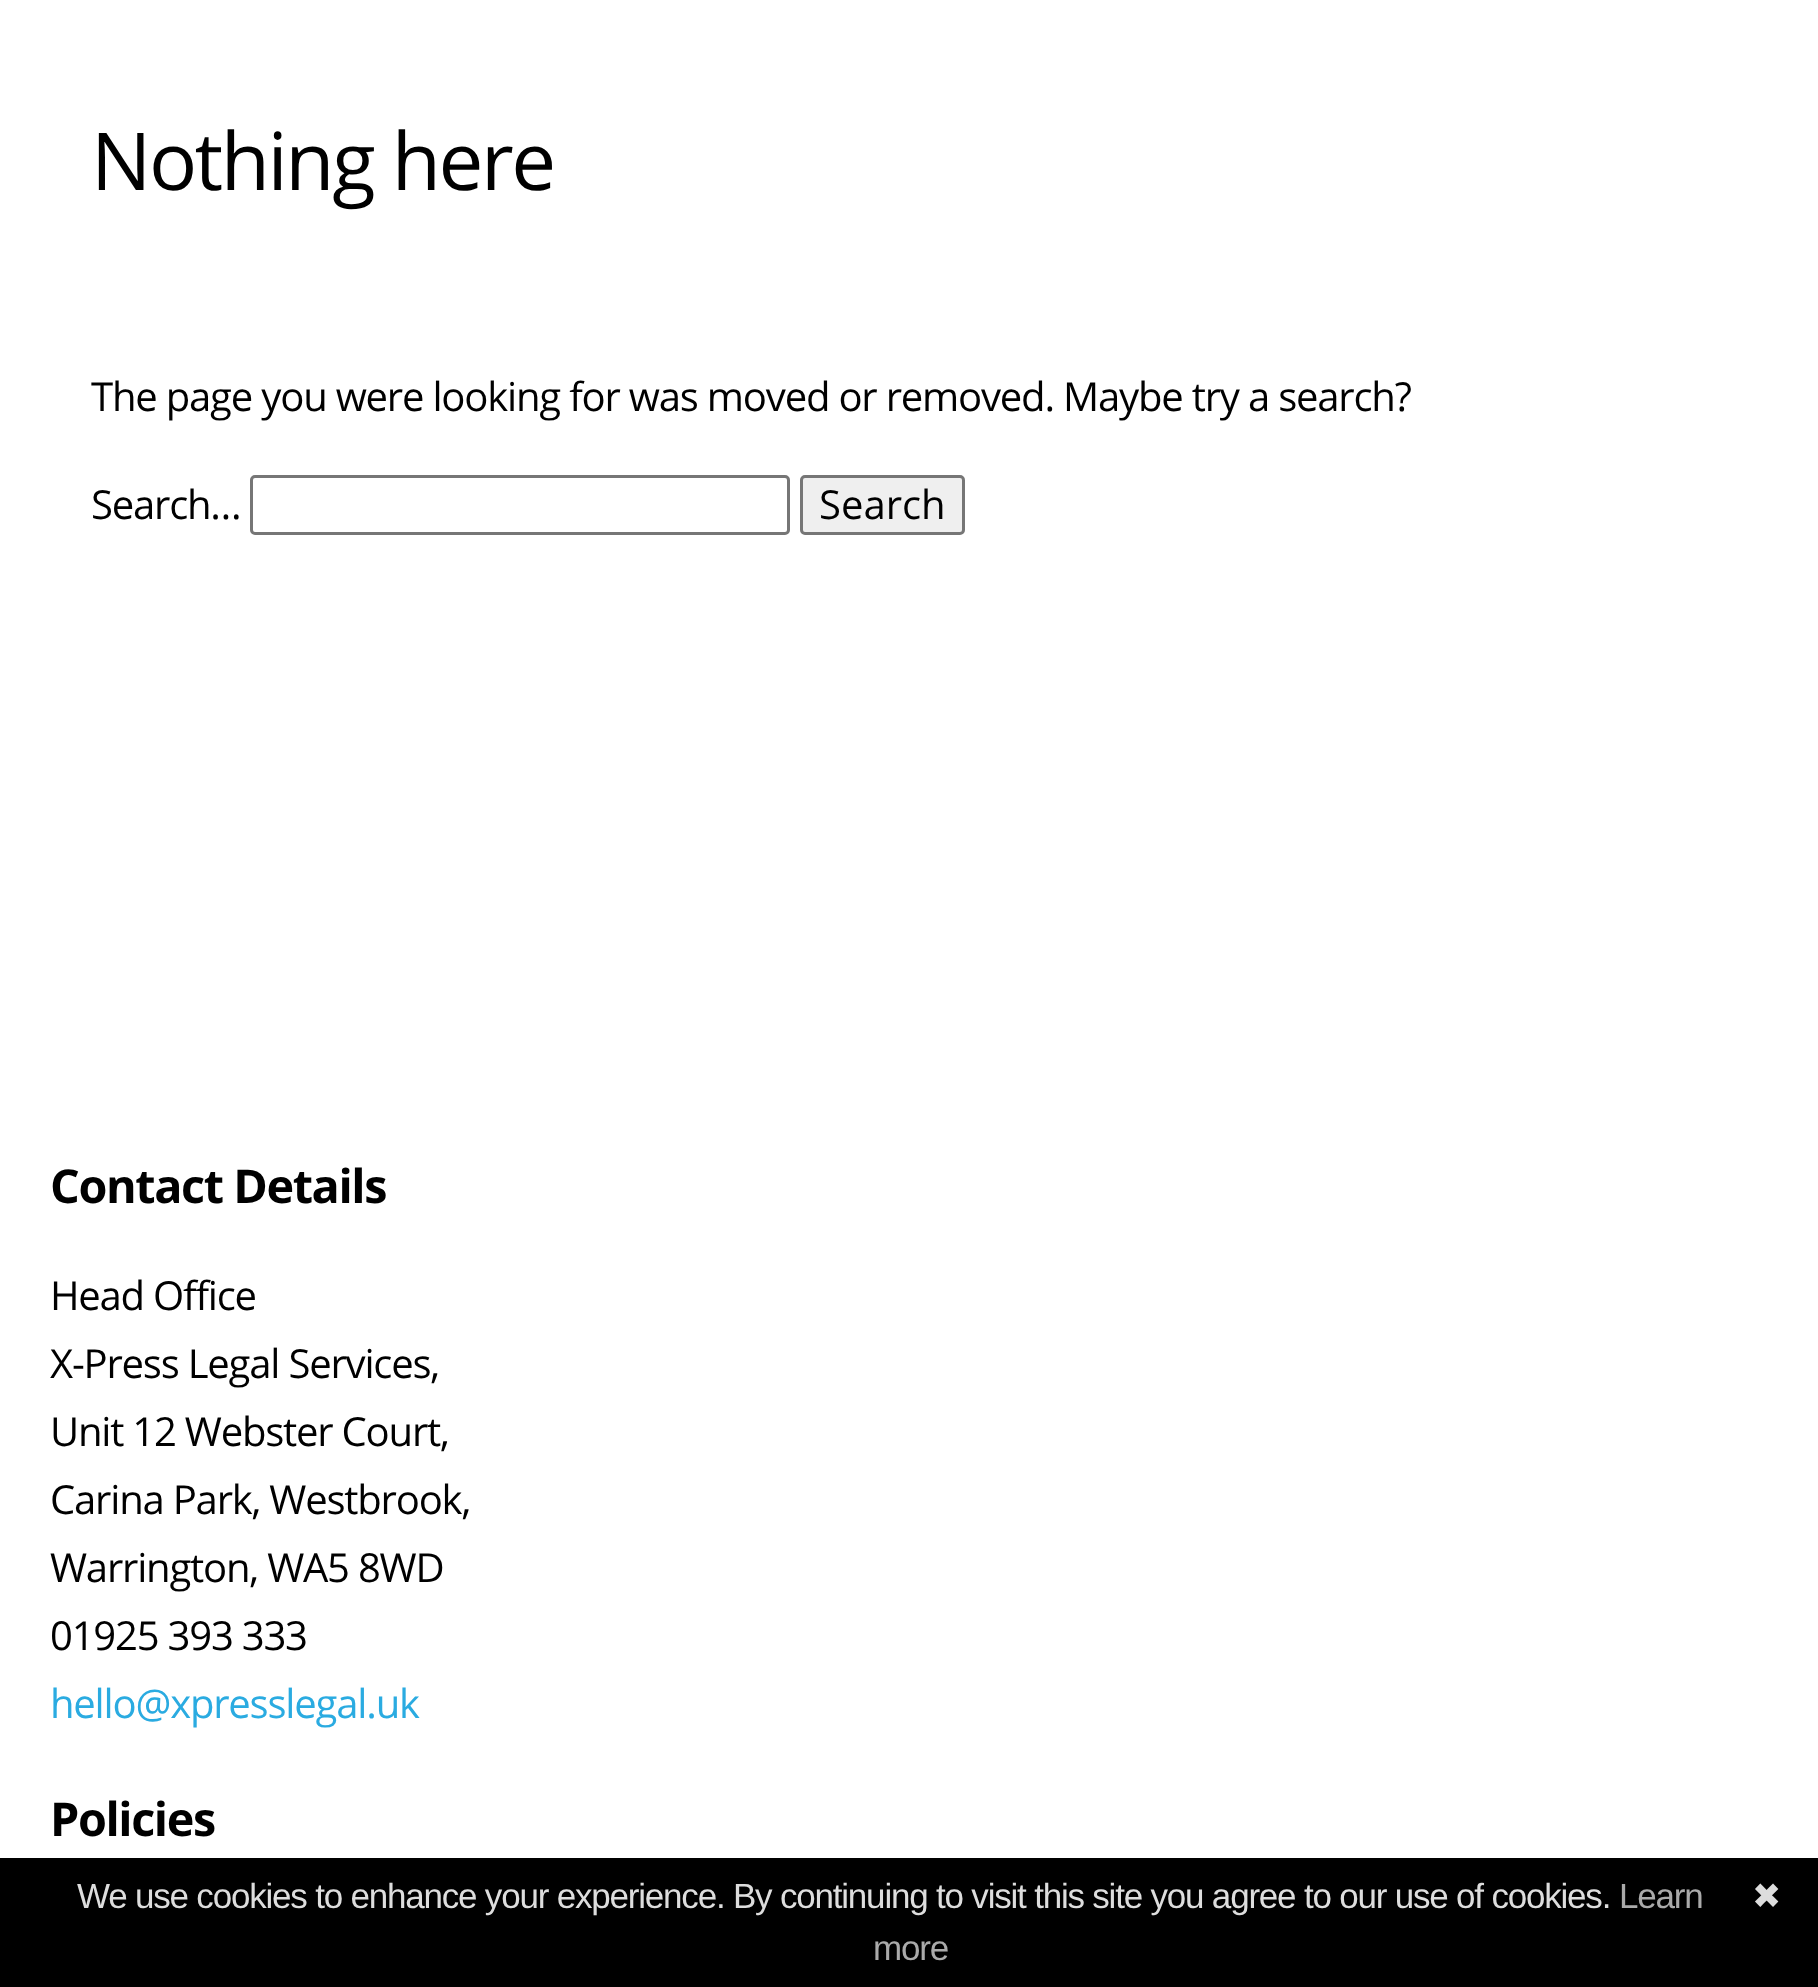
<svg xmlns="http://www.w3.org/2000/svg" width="1818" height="1987">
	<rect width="100%" height="100%" fill="#FFFFFF" />
	<text x="91" y="190" font-family="Open Sans" font-size="80" letter-spacing="-2.4" fill="#000000">Nothing here</text>
	<g font-family="Open Sans" font-size="40" letter-spacing="-1.2" fill="#000000">
		<text x="91" y="411">The page you were looking for was moved or removed. Maybe try a search?</text>
		<text x="91" y="519">Search…</text>
	</g>
	<rect x="251.5" y="476.5" width="537" height="57" rx="3.5" fill="none" stroke="#767676" stroke-width="3" />
	<rect x="801.5" y="476.5" width="162" height="57" rx="3.5" fill="#EFEFEF" stroke="#767676" stroke-width="3" />
	<text x="819" y="519" font-family="Open Sans" font-size="40" fill="#000000">Search</text>
	<text x="50" y="1203" font-family="Open Sans" font-size="46.75" font-weight="700" letter-spacing="-1.4" fill="#000000">Contact Details</text>
	<g font-family="Open Sans" font-size="40" letter-spacing="-1.2" fill="#000000">
		<text x="50" y="1310">Head Office</text>
		<text x="50" y="1378">X-Press Legal Services,</text>
		<text x="50" y="1446">Unit 12 Webster Court,</text>
		<text x="50" y="1514">Carina Park, Westbrook,</text>
		<text x="50" y="1582">Warrington, WA5 8WD</text>
		<text x="50" y="1650">01925 393 333</text>
	</g>
	<text x="50" y="1718" font-family="Open Sans" font-size="40" letter-spacing="-1.2" fill="#2AABE1">hello@xpresslegal.uk</text>
	<text x="50" y="1836" font-family="Open Sans" font-size="46.75" font-weight="700" letter-spacing="-1.4" fill="#000000">Policies</text>
	<rect x="0" y="1858" width="1818" height="129" fill="#000000" />
	<text x="77" y="1908" font-family="Liberation Sans" font-size="35" letter-spacing="-1.2" fill="#DDDDDD">We use cookies to enhance your experience. By continuing to visit this site you agree to our use of cookies.</text>
	<text x="1619" y="1908" font-family="Liberation Sans" font-size="35" letter-spacing="-1.2" fill="#AAAAAA">Learn</text>
	<text x="1752" y="1908" font-family="DejaVu Sans" font-size="35" letter-spacing="-1.2" fill="#DDDDDD">✖</text>
	<text x="873" y="1960" font-family="Liberation Sans" font-size="35" letter-spacing="-1.2" fill="#AAAAAA">more</text>
</svg>
